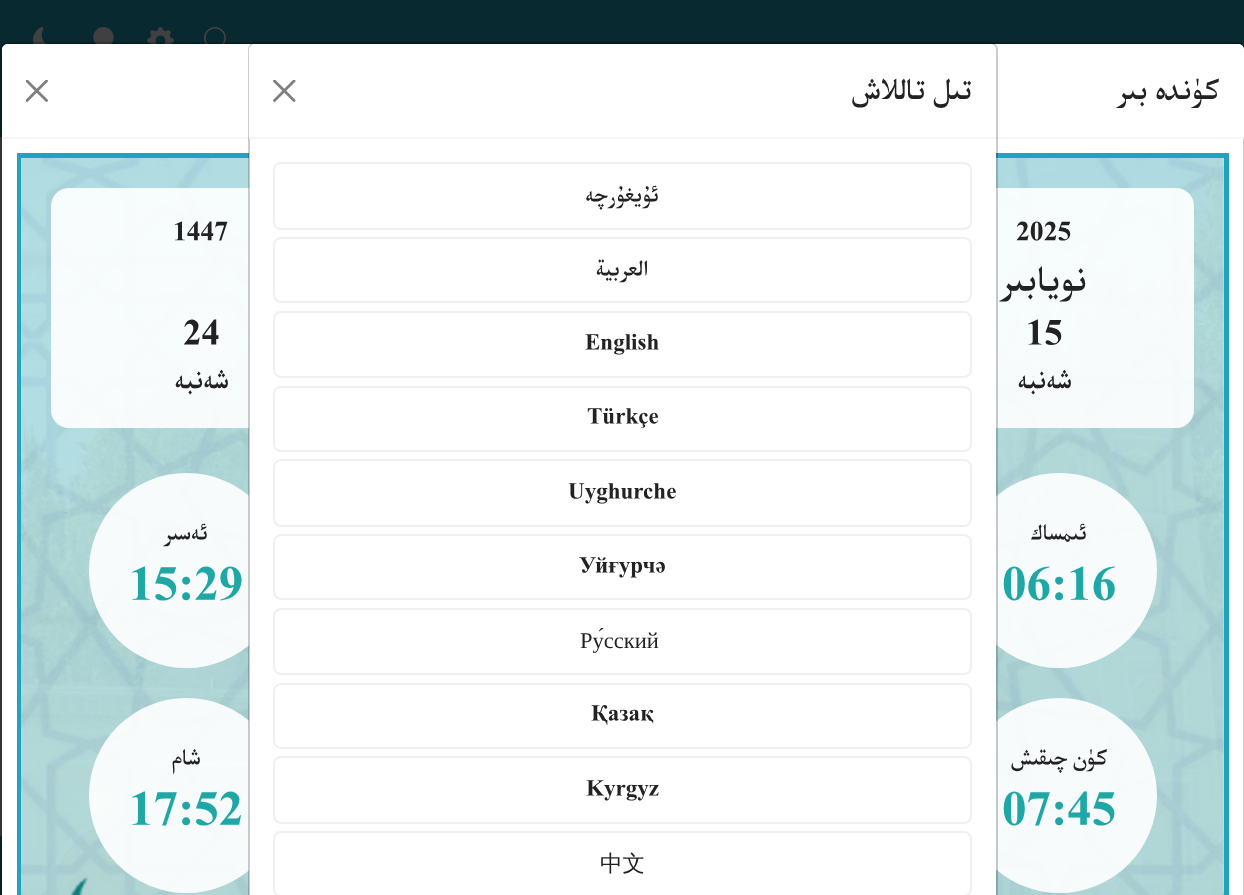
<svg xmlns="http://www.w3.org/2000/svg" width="1244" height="895">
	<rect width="100%" height="100%" fill="#404040" />
	<rect x="0" y="0" width="1244" height="137" fill="#082930" />
	<image x="33" y="27" width="13" height="17" href="assets/img1.png" />
	<image x="93" y="27" width="21" height="17" href="assets/img2.png" />
	<image x="147" y="27" width="27" height="17" href="assets/img3.png" />
	<image x="204" y="27" width="22" height="17" href="assets/img4.png" />
	<path d="M8 44H1238C1241.5 44 1244 46.5 1244 50V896H2V50C2 46.5 4.5 44 8 44Z" fill="#FFFFFF" />
	<rect x="0" y="836" width="2" height="59" fill="#082930" />
	<rect x="1" y="43" width="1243" height="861" rx="7" fill="none" stroke="#000000" stroke-opacity="0.2" stroke-width="2" />
	<path d="M8 44H1238C1241.5 44 1244 46.5 1244 50V138H2V50C2 46.5 4.5 44 8 44Z" fill="#FFFFFF" />
	<rect x="2" y="137" width="1242" height="2" fill="#F5F5F7" />
	<image x="26" y="80" width="22" height="22" href="assets/img5.png" />
	<text x="1219" y="101" font-family="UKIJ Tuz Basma" font-size="30" font-weight="700" direction="rtl" fill="#222222">كۈندە بىر</text>
	<rect x="19.5" y="155.5" width="1207" height="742" fill="none" stroke="#1FA4BE" stroke-width="5" />
	<image x="21" y="158" width="1203" height="737" href="assets/img6.png" />
	<rect x="51" y="188" width="300" height="240" rx="18" fill="#FFFFFF" fill-opacity="0.9" />
	<text x="173" y="242" font-family="UKIJ Tuz Basma" font-size="27" font-weight="700" fill="#222222">1447</text>
	<text x="183" y="347" font-family="UKIJ Tuz Basma" font-size="36" font-weight="700" fill="#222222">24</text>
	<text x="228" y="390" font-family="UKIJ Tuz Basma" font-size="27" font-weight="700" direction="rtl" fill="#222222">شەنبە</text>
	<rect x="894" y="188" width="300" height="240" rx="18" fill="#FFFFFF" fill-opacity="0.9" />
	<text x="1016" y="242" font-family="UKIJ Tuz Basma" font-size="27" font-weight="700" fill="#222222">2025</text>
	<text x="1087" y="293" font-family="UKIJ Tuz Basma" font-size="36" font-weight="700" direction="rtl" fill="#222222">نويابىر</text>
	<text x="1026" y="347" font-family="UKIJ Tuz Basma" font-size="36" font-weight="700" fill="#222222">15</text>
	<text x="1071" y="390" font-family="UKIJ Tuz Basma" font-size="27" font-weight="700" direction="rtl" fill="#222222">شەنبە</text>
	<circle cx="186.5" cy="570.5" r="97.5" fill="#FFFFFF" fill-opacity="0.9" />
	<text x="208" y="541" font-family="UKIJ Tuz Basma" font-size="22.5" font-weight="700" direction="rtl" fill="#222222">ئەسىر</text>
	<text x="129" y="603" font-family="UKIJ Tuz Basma" font-size="48" font-weight="700" fill="#1EA7A5">15:29</text>
	<circle cx="186.5" cy="795.5" r="97.5" fill="#FFFFFF" fill-opacity="0.9" />
	<text x="200" y="766" font-family="UKIJ Tuz Basma" font-size="22.5" font-weight="700" direction="rtl" fill="#222222">شام</text>
	<text x="129" y="828" font-family="UKIJ Tuz Basma" font-size="48" font-weight="700" fill="#1EA7A5">17:52</text>
	<circle cx="1059.5" cy="570.5" r="97.5" fill="#FFFFFF" fill-opacity="0.9" />
	<text x="1087" y="541" font-family="UKIJ Tuz Basma" font-size="22.5" font-weight="700" direction="rtl" fill="#222222">ئىمساك</text>
	<text x="1002" y="603" font-family="UKIJ Tuz Basma" font-size="48" font-weight="700" fill="#1EA7A5">06:16</text>
	<circle cx="1059.5" cy="795.5" r="97.5" fill="#FFFFFF" fill-opacity="0.9" />
	<text x="1107" y="766" font-family="UKIJ Tuz Basma" font-size="22.5" font-weight="700" direction="rtl" fill="#222222">كۈن چىقىش</text>
	<text x="1002" y="828" font-family="UKIJ Tuz Basma" font-size="48" font-weight="700" fill="#1EA7A5">07:45</text>
	<path d="M255 44H990C993.5 44 996 46.5 996 50V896H249V50C249 46.5 251.5 44 255 44Z" fill="#FFFFFF" />
	<rect x="249" y="43" width="748" height="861" rx="7" fill="none" stroke="#000000" stroke-opacity="0.2" stroke-width="2" />
	<path d="M255 44H990C993.5 44 996 46.5 996 50V138H249V50C249 46.5 251.5 44 255 44Z" fill="#FFFFFF" />
	<rect x="249" y="137" width="747" height="2" fill="#F5F5F7" />
	<image x="273" y="80" width="23" height="22" href="assets/img7.png" />
	<text x="972" y="101" font-family="UKIJ Tuz Basma" font-size="30" font-weight="700" direction="rtl" fill="#222222">تىل تاللاش</text>
	<rect x="274" y="163" width="697" height="66" rx="7" fill="none" stroke="#F0F0F0" stroke-width="2" />
	<text x="659" y="203" font-family="UKIJ Tuz Basma" font-size="22.5" font-weight="700" direction="rtl" fill="#222222">ئۇيغۇرچە</text>
	<rect x="274" y="238" width="697" height="64" rx="7" fill="none" stroke="#F0F0F0" stroke-width="2" />
	<text x="648" y="277" font-family="UKIJ Tuz Basma" font-size="22.5" font-weight="700" direction="rtl" fill="#222222">العربية</text>
	<rect x="274" y="312" width="697" height="65" rx="7" fill="none" stroke="#F0F0F0" stroke-width="2" />
	<text x="585" y="351" font-family="UKIJ Tuz Basma" font-size="22.5" font-weight="700" fill="#222222">English</text>
	<rect x="274" y="387" width="697" height="64" rx="7" fill="none" stroke="#F0F0F0" stroke-width="2" />
	<text x="587" y="425" font-family="UKIJ Tuz Basma" font-size="22.5" font-weight="700" fill="#222222">Türkçe</text>
	<rect x="274" y="460" width="697" height="66" rx="7" fill="none" stroke="#F0F0F0" stroke-width="2" />
	<text x="568" y="500" font-family="UKIJ Tuz Basma" font-size="22.5" font-weight="700" fill="#222222">Uyghurche</text>
	<rect x="274" y="535" width="697" height="64" rx="7" fill="none" stroke="#F0F0F0" stroke-width="2" />
	<text x="579" y="574" font-family="UKIJ Tuz Basma" font-size="22.5" font-weight="700" fill="#222222">Уйғурчә</text>
	<rect x="274" y="609" width="697" height="65" rx="7" fill="none" stroke="#F0F0F0" stroke-width="2" />
	<text x="580" y="648" font-family="Liberation Serif" font-size="22.5" fill="#222222">Ру́сский</text>
	<rect x="274" y="684" width="697" height="64" rx="7" fill="none" stroke="#F0F0F0" stroke-width="2" />
	<text x="591" y="722" font-family="UKIJ Tuz Basma" font-size="22.5" font-weight="700" fill="#222222">Қазақ</text>
	<rect x="274" y="757" width="697" height="66" rx="7" fill="none" stroke="#F0F0F0" stroke-width="2" />
	<text x="586" y="797" font-family="UKIJ Tuz Basma" font-size="22.5" font-weight="700" fill="#222222">Kyrgyz</text>
	<rect x="274" y="832" width="697" height="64" rx="7" fill="none" stroke="#F0F0F0" stroke-width="2" />
	<text x="600" y="871" font-family="WenQuanYi Zen Hei" font-size="22.5" font-weight="500" fill="#222222">中文</text>
</svg>
